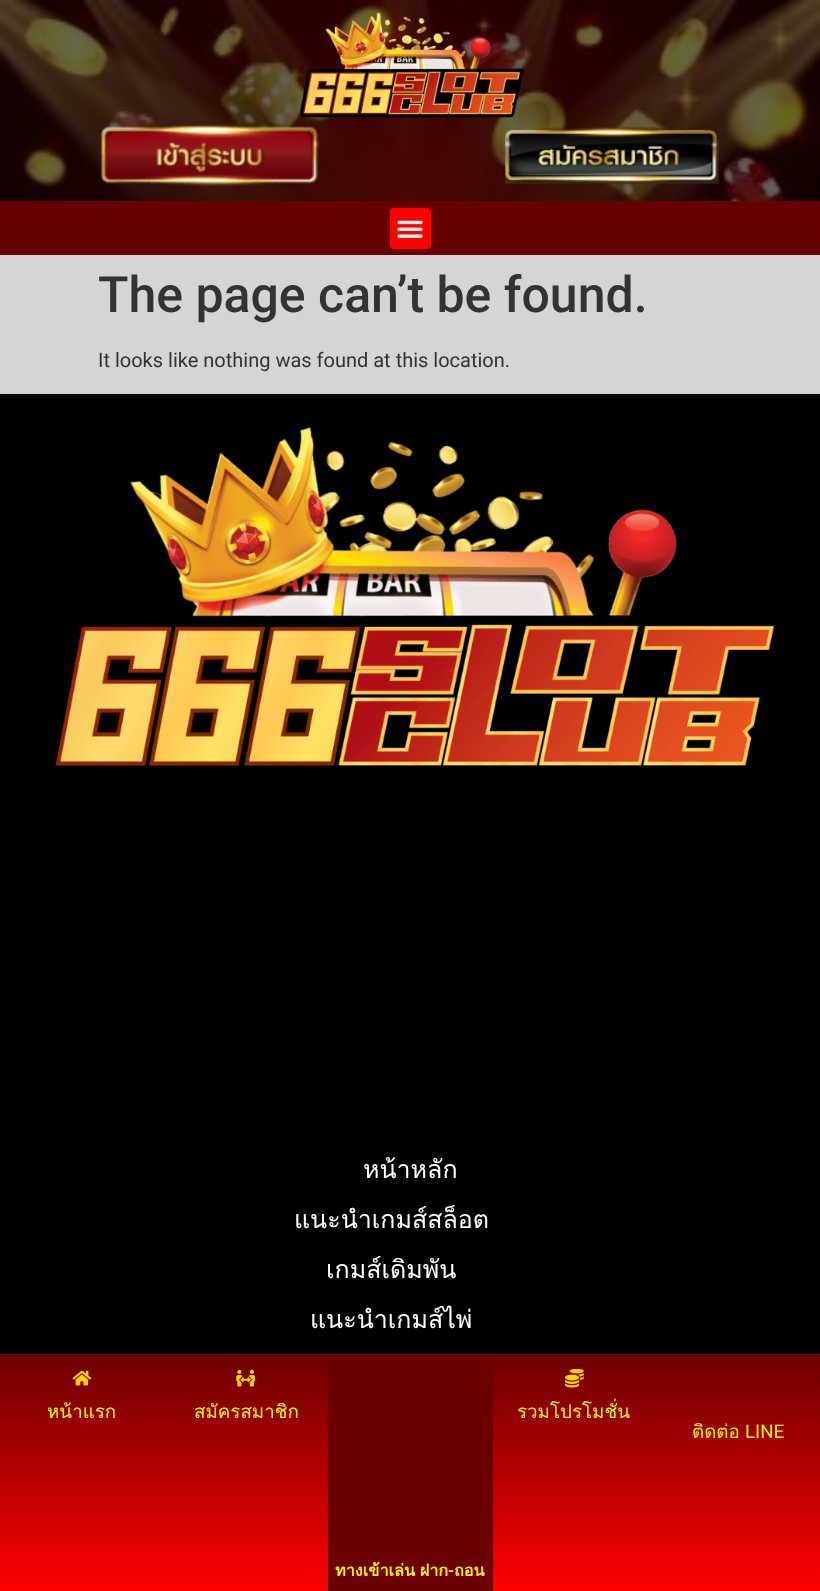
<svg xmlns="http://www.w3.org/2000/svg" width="820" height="1591">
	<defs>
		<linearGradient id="g1" gradientUnits="userSpaceOnUse" x1="410" y1="0" x2="410" y2="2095"><stop offset="0.86" stop-color="#D5D5D8" /><stop offset="1" stop-color="#3A3A3A" /></linearGradient>
		<linearGradient id="g2" gradientUnits="userSpaceOnUse" x1="82" y1="1354" x2="82" y2="1591"><stop offset="0" stop-color="#6C0000" /><stop offset="1" stop-color="#FF0000" /></linearGradient>
		<linearGradient id="g3" gradientUnits="userSpaceOnUse" x1="246" y1="1354" x2="246" y2="1591"><stop offset="0" stop-color="#6C0000" /><stop offset="1" stop-color="#FF0000" /></linearGradient>
		<linearGradient id="g4" gradientUnits="userSpaceOnUse" x1="574" y1="1354" x2="574" y2="1591"><stop offset="0" stop-color="#6C0000" /><stop offset="1" stop-color="#FF0000" /></linearGradient>
		<linearGradient id="g5" gradientUnits="userSpaceOnUse" x1="738" y1="1354" x2="738" y2="1591"><stop offset="0" stop-color="#6C0000" /><stop offset="1" stop-color="#FF0000" /></linearGradient>
	</defs>
	<rect width="100%" height="100%" fill="#FFFFFF" />
	<rect x="0" y="255" width="820" height="139" fill="url(#g1)" />
	<rect x="0" y="0" width="820" height="201" fill="#000000" />
	<rect x="0" y="201" width="820" height="54" fill="#670000" />
	<image x="0" y="0" width="820" height="202" href="assets/img1.png" />
	<image x="299" y="12" width="225" height="106" href="assets/img2.png" />
	<image x="100" y="124" width="221" height="62" href="assets/img3.png" />
	<image x="505" y="127" width="214" height="57" href="assets/img4.png" />
	<rect x="390" y="208" width="41" height="41" rx="4" fill="#FF0000" />
	<image x="397" y="220" width="26" height="18" href="assets/img5.png" />
	<text x="98" y="312" font-family="Roboto" font-size="50" font-weight="500" fill="#333333">The page can’t be found.</text>
	<text x="98" y="367" font-family="Roboto" font-size="20" fill="#333333">It looks like nothing was found at this location.</text>
	<rect x="0" y="394" width="820" height="960" fill="#000000" />
	<image x="55" y="427" width="720" height="340" href="assets/img6.png" />
	<g font-family="Loma" font-size="25" fill="#FFFFFF">
		<text x="363" y="1178">หน้าหลัก</text>
		<text x="294" y="1228">แนะนำเกมส์สล็อต</text>
		<text x="326" y="1278">เกมส์เดิมพัน</text>
		<text x="310" y="1328">แนะนำเกมส์ไพ่</text>
	</g>
	<rect x="0" y="1354" width="164" height="237" fill="url(#g2)" />
	<image x="73" y="1370" width="18" height="16" href="assets/img7.png" />
	<text x="47" y="1418" font-family="Loma" font-size="18.75" fill="#FFF900">หน้าแรก</text>
	<rect x="164" y="1354" width="164" height="237" fill="url(#g3)" />
	<image x="236" y="1369" width="19" height="18" href="assets/img8.png" />
	<text x="194" y="1418" font-family="Loma" font-size="18.75" fill="#FFF900">สมัครสมาชิก</text>
	<rect x="493" y="1354" width="163" height="237" fill="url(#g4)" />
	<image x="565" y="1369" width="19" height="19" href="assets/img9.png" />
	<text x="517" y="1418" font-family="Loma" font-size="18.75" fill="#FFF900">รวมโปรโมชั่น</text>
	<rect x="656" y="1354" width="164" height="237" fill="url(#g5)" />
	<text x="692" y="1438" font-family="Loma" font-size="18.75" fill="#FFF900">ติดต่อ</text>
	<text x="745" y="1438" font-family="Roboto" font-size="18.75" fill="#FFF900">LINE</text>
	<rect x="328" y="1354" width="165" height="237" fill="#6C0000" />
	<text x="335" y="1576" word-spacing="-1" font-family="Loma" font-size="16.25" font-weight="700" fill="#FFF900">ทางเข้าเล่น ฝาก</text>
	<text x="448" y="1576" font-family="Roboto" font-size="16.25" font-weight="600" fill="#FFF900">-</text>
	<text x="454" y="1576" font-family="Loma" font-size="16.25" font-weight="700" fill="#FFF900">ถอน</text>
</svg>
